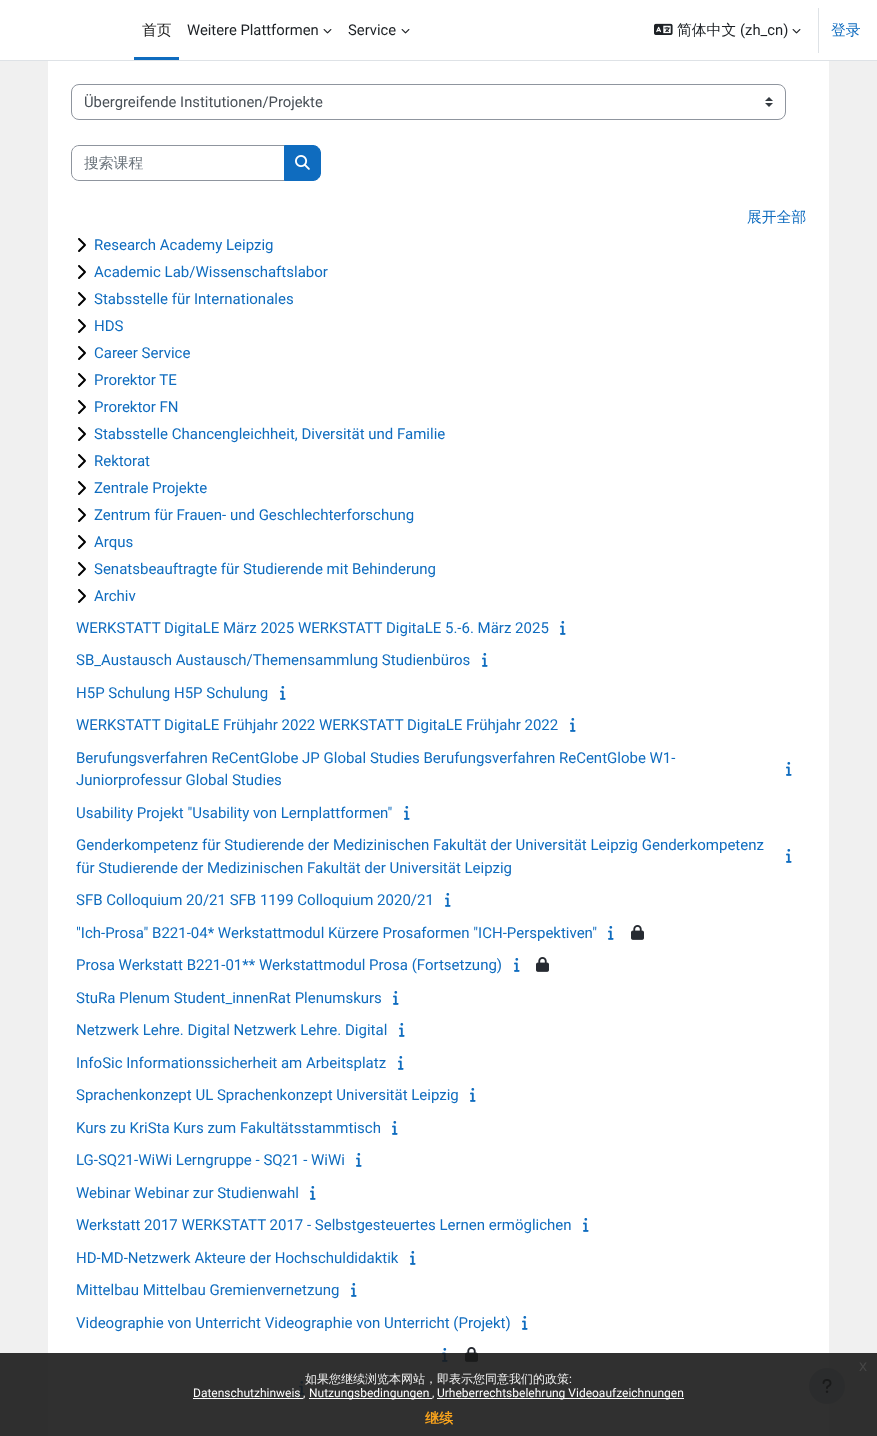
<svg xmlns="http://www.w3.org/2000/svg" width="877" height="1436">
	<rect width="100%" height="100%" fill="#F0F0F0" />
	<rect x="0" y="0" width="877" height="60" fill="#FFFFFF" />
	<rect x="0" y="60" width="877" height="1" fill="#DEE2E6" />
	<rect x="134" y="57" width="45" height="3" fill="#0F6CBF" />
	<text x="142" y="35" font-family="WenQuanYi Zen Hei" font-size="14.8" font-weight="500" fill="#1A1A1A">首页</text>
	<text x="187" y="35" font-family="Roboto" font-size="14.8" fill="#1D2125">Weitere Plattformen</text>
	<image x="323" y="29" width="9" height="5" href="assets/img1.png" />
	<text x="348" y="35" font-family="Roboto" font-size="14.8" fill="#1D2125">Service</text>
	<image x="401" y="29" width="9" height="5" href="assets/img1.png" />
	<image x="654" y="23" width="19" height="12" href="assets/img2.png" />
	<text x="677" y="35" font-family="WenQuanYi Zen Hei" font-size="14.8" font-weight="500" fill="#1D2125">简体中文</text>
	<text x="740" y="35" font-family="Roboto" font-size="14.8" fill="#1D2125">(zh_cn)</text>
	<image x="792" y="29" width="9" height="5" href="assets/img1.png" />
	<rect x="818" y="8" width="1" height="45" fill="#DEE2E6" />
	<text x="831" y="35" font-family="WenQuanYi Zen Hei" font-size="14.8" font-weight="500" fill="#0F6CBF">登录</text>
	<rect x="48" y="61" width="781" height="1375" fill="#FFFFFF" />
	<image x="765" y="97" width="8" height="10" href="assets/img3.png" />
	<rect x="71.5" y="84.5" width="714" height="35" rx="7.5" fill="none" stroke="#8F959E" />
	<text x="84" y="107" font-family="Roboto" font-size="14.8" fill="#495057">Übergreifende Institutionen/Projekte</text>
	<path d="M79 145.5H284.5V180.5H79C75 180.5 71.5 177 71.5 173V153C71.5 149 75 145.5 79 145.5Z" fill="none" stroke="#8F959E" />
	<text x="84" y="168" font-family="WenQuanYi Zen Hei" font-size="14.8" font-weight="500" fill="#6A737B">搜索课程</text>
	<path d="M284.5 145.5H313C317 145.5 320.5 149 320.5 153V173C320.5 177 317 180.5 313 180.5H284.5Z" fill="#0F6CBF" stroke="#0F6CBF" />
	<image x="295" y="155" width="15" height="15" href="assets/img4.png" />
	<text x="747" y="222" font-family="WenQuanYi Zen Hei" font-size="14.8" font-weight="500" fill="#0F6CBF">展开全部</text>
	<image x="78" y="238" width="8" height="14" href="assets/img5.png" />
	<text x="94" y="250" font-family="Roboto" font-size="15" fill="#0F6CBF">Research Academy Leipzig</text>
	<image x="78" y="265" width="8" height="14" href="assets/img5.png" />
	<text x="94" y="277" font-family="Roboto" font-size="15" fill="#0F6CBF">Academic Lab/Wissenschaftslabor</text>
	<image x="78" y="292" width="8" height="14" href="assets/img5.png" />
	<text x="94" y="304" font-family="Roboto" font-size="15" fill="#0F6CBF">Stabsstelle für Internationales</text>
	<image x="78" y="319" width="8" height="14" href="assets/img5.png" />
	<text x="94" y="331" font-family="Roboto" font-size="15" fill="#0F6CBF">HDS</text>
	<image x="78" y="346" width="8" height="14" href="assets/img5.png" />
	<text x="94" y="358" font-family="Roboto" font-size="15" fill="#0F6CBF">Career Service</text>
	<image x="78" y="373" width="8" height="14" href="assets/img5.png" />
	<text x="94" y="385" font-family="Roboto" font-size="15" fill="#0F6CBF">Prorektor TE</text>
	<image x="78" y="400" width="8" height="14" href="assets/img5.png" />
	<text x="94" y="412" font-family="Roboto" font-size="15" fill="#0F6CBF">Prorektor FN</text>
	<image x="78" y="427" width="8" height="14" href="assets/img5.png" />
	<text x="94" y="439" font-family="Roboto" font-size="15" fill="#0F6CBF">Stabsstelle Chancengleichheit, Diversität und Familie</text>
	<image x="78" y="454" width="8" height="14" href="assets/img5.png" />
	<text x="94" y="466" font-family="Roboto" font-size="15" fill="#0F6CBF">Rektorat</text>
	<image x="78" y="481" width="8" height="14" href="assets/img5.png" />
	<text x="94" y="493" font-family="Roboto" font-size="15" fill="#0F6CBF">Zentrale Projekte</text>
	<image x="78" y="508" width="8" height="14" href="assets/img5.png" />
	<text x="94" y="520" font-family="Roboto" font-size="15" fill="#0F6CBF">Zentrum für Frauen- und Geschlechterforschung</text>
	<image x="78" y="535" width="8" height="14" href="assets/img5.png" />
	<text x="94" y="547" font-family="Roboto" font-size="15" fill="#0F6CBF">Arqus</text>
	<image x="78" y="562" width="8" height="14" href="assets/img5.png" />
	<text x="94" y="574" font-family="Roboto" font-size="15" fill="#0F6CBF">Senatsbeauftragte für Studierende mit Behinderung</text>
	<image x="78" y="589" width="8" height="14" href="assets/img5.png" />
	<g font-family="Roboto" font-size="15" fill="#0F6CBF">
		<text x="94" y="601">Archiv</text>
		<text x="76" y="633">WERKSTATT DigitaLE März 2025 WERKSTATT DigitaLE 5.-6. März 2025</text>
	</g>
	<image x="560" y="621" width="6" height="14" href="assets/img6.png" />
	<text x="76" y="665" font-family="Roboto" font-size="15" fill="#0F6CBF">SB_Austausch Austausch/Themensammlung Studienbüros</text>
	<image x="482" y="653" width="6" height="14" href="assets/img6.png" />
	<text x="76" y="698" font-family="Roboto" font-size="15" fill="#0F6CBF">H5P Schulung H5P Schulung</text>
	<image x="280" y="686" width="6" height="14" href="assets/img6.png" />
	<text x="76" y="730" font-family="Roboto" font-size="15" fill="#0F6CBF">WERKSTATT DigitaLE Frühjahr 2022 WERKSTATT DigitaLE Frühjahr 2022</text>
	<image x="570" y="718" width="6" height="14" href="assets/img6.png" />
	<g font-family="Roboto" font-size="15" fill="#0F6CBF">
		<text x="76" y="763">Berufungsverfahren ReCentGlobe JP Global Studies Berufungsverfahren ReCentGlobe W1-</text>
		<text x="76" y="785">Juniorprofessur Global Studies</text>
	</g>
	<image x="786" y="762" width="6" height="14" href="assets/img6.png" />
	<text x="76" y="818" font-family="Roboto" font-size="15" fill="#0F6CBF">Usability Projekt "Usability von Lernplattformen"</text>
	<image x="404" y="806" width="6" height="14" href="assets/img6.png" />
	<g font-family="Roboto" font-size="15" fill="#0F6CBF">
		<text x="76" y="850">Genderkompetenz für Studierende der Medizinischen Fakultät der Universität Leipzig Genderkompetenz</text>
		<text x="76" y="873">für Studierende der Medizinischen Fakultät der Universität Leipzig</text>
	</g>
	<image x="786" y="849" width="6" height="14" href="assets/img6.png" />
	<text x="76" y="905" font-family="Roboto" font-size="15" fill="#0F6CBF">SFB Colloquium 20/21 SFB 1199 Colloquium 2020/21</text>
	<image x="445" y="893" width="6" height="14" href="assets/img6.png" />
	<text x="76" y="938" font-family="Roboto" font-size="15" fill="#0F6CBF">"Ich-Prosa" B221-04* Werkstattmodul Kürzere Prosaformen "ICH-Perspektiven"</text>
	<image x="608" y="926" width="6" height="14" href="assets/img6.png" />
	<image x="631" y="925" width="13" height="15" href="assets/img7.png" />
	<text x="76" y="970" font-family="Roboto" font-size="15" fill="#0F6CBF">Prosa Werkstatt B221-01** Werkstattmodul Prosa (Fortsetzung)</text>
	<image x="514" y="958" width="6" height="14" href="assets/img6.png" />
	<image x="536" y="957" width="13" height="15" href="assets/img7.png" />
	<text x="76" y="1003" font-family="Roboto" font-size="15" fill="#0F6CBF">StuRa Plenum Student_innenRat Plenumskurs</text>
	<image x="393" y="991" width="6" height="14" href="assets/img6.png" />
	<text x="76" y="1035" font-family="Roboto" font-size="15" fill="#0F6CBF">Netzwerk Lehre. Digital Netzwerk Lehre. Digital</text>
	<image x="399" y="1023" width="6" height="14" href="assets/img6.png" />
	<text x="76" y="1068" font-family="Roboto" font-size="15" fill="#0F6CBF">InfoSic Informationssicherheit am Arbeitsplatz</text>
	<image x="398" y="1056" width="6" height="14" href="assets/img6.png" />
	<text x="76" y="1100" font-family="Roboto" font-size="15" fill="#0F6CBF">Sprachenkonzept UL Sprachenkonzept Universität Leipzig</text>
	<image x="470" y="1088" width="6" height="14" href="assets/img6.png" />
	<text x="76" y="1133" font-family="Roboto" font-size="15" fill="#0F6CBF">Kurs zu KriSta Kurs zum Fakultätsstammtisch</text>
	<image x="392" y="1121" width="6" height="14" href="assets/img6.png" />
	<text x="76" y="1165" font-family="Roboto" font-size="15" fill="#0F6CBF">LG-SQ21-WiWi Lerngruppe - SQ21 - WiWi</text>
	<image x="356" y="1153" width="6" height="14" href="assets/img6.png" />
	<text x="76" y="1198" font-family="Roboto" font-size="15" fill="#0F6CBF">Webinar Webinar zur Studienwahl</text>
	<image x="310" y="1186" width="6" height="14" href="assets/img6.png" />
	<text x="76" y="1230" font-family="Roboto" font-size="15" fill="#0F6CBF">Werkstatt 2017 WERKSTATT 2017 - Selbstgesteuertes Lernen ermöglichen</text>
	<image x="583" y="1218" width="6" height="14" href="assets/img6.png" />
	<text x="76" y="1263" font-family="Roboto" font-size="15" fill="#0F6CBF">HD-MD-Netzwerk Akteure der Hochschuldidaktik</text>
	<image x="410" y="1251" width="6" height="14" href="assets/img6.png" />
	<text x="76" y="1295" font-family="Roboto" font-size="15" fill="#0F6CBF">Mittelbau Mittelbau Gremienvernetzung</text>
	<image x="351" y="1283" width="6" height="14" href="assets/img6.png" />
	<text x="76" y="1328" font-family="Roboto" font-size="15" fill="#0F6CBF">Videographie von Unterricht Videographie von Unterricht (Projekt)</text>
	<image x="522" y="1316" width="6" height="14" href="assets/img6.png" />
	<image x="442" y="1348" width="6" height="14" href="assets/img6.png" />
	<image x="465" y="1347" width="13" height="15" href="assets/img7.png" />
	<image x="299" y="1381" width="6" height="14" href="assets/img6.png" />
	<circle cx="827" cy="1386" r="18" fill="#CED4DA" />
	<image x="822" y="1379" width="10" height="14" href="assets/img8.png" />
	<rect x="0" y="1353" width="877" height="83" fill="#191919" fill-opacity="0.9" />
	<text x="859" y="1371" font-family="Liberation Sans" font-size="16" fill="#464646">x</text>
	<text x="305" y="1383" font-family="WenQuanYi Zen Hei" font-size="12" font-weight="500" fill="#EFEFEF">如果您继续浏览本网站，即表示您同意我们的政策</text>
	<text x="569" y="1383" font-family="Roboto" font-size="12" fill="#EFEFEF">:</text>
	<text x="193" y="1397" font-family="Roboto" font-size="12" fill="#FFFFFF">Datenschutzhinweis</text>
	<rect x="193" y="1398" width="110" height="1" fill="#FFFFFF" />
	<text x="303" y="1397" font-family="Roboto" font-size="12" fill="#EFEFEF">,</text>
	<rect x="309" y="1398" width="123" height="1" fill="#FFFFFF" />
	<text x="309" y="1397" font-family="Roboto" font-size="12" fill="#FFFFFF">Nutzungsbedingungen</text>
	<text x="432" y="1397" font-family="Roboto" font-size="12" fill="#EFEFEF">,</text>
	<rect x="437" y="1398" width="247" height="1" fill="#FFFFFF" />
	<text x="437" y="1397" font-family="Roboto" font-size="12" fill="#FFFFFF">Urheberrechtsbelehrung Videoaufzeichnungen</text>
	<text x="425" y="1423" font-family="WenQuanYi Zen Hei" font-size="14" font-weight="700" fill="#F6A21D">继续</text>
</svg>
